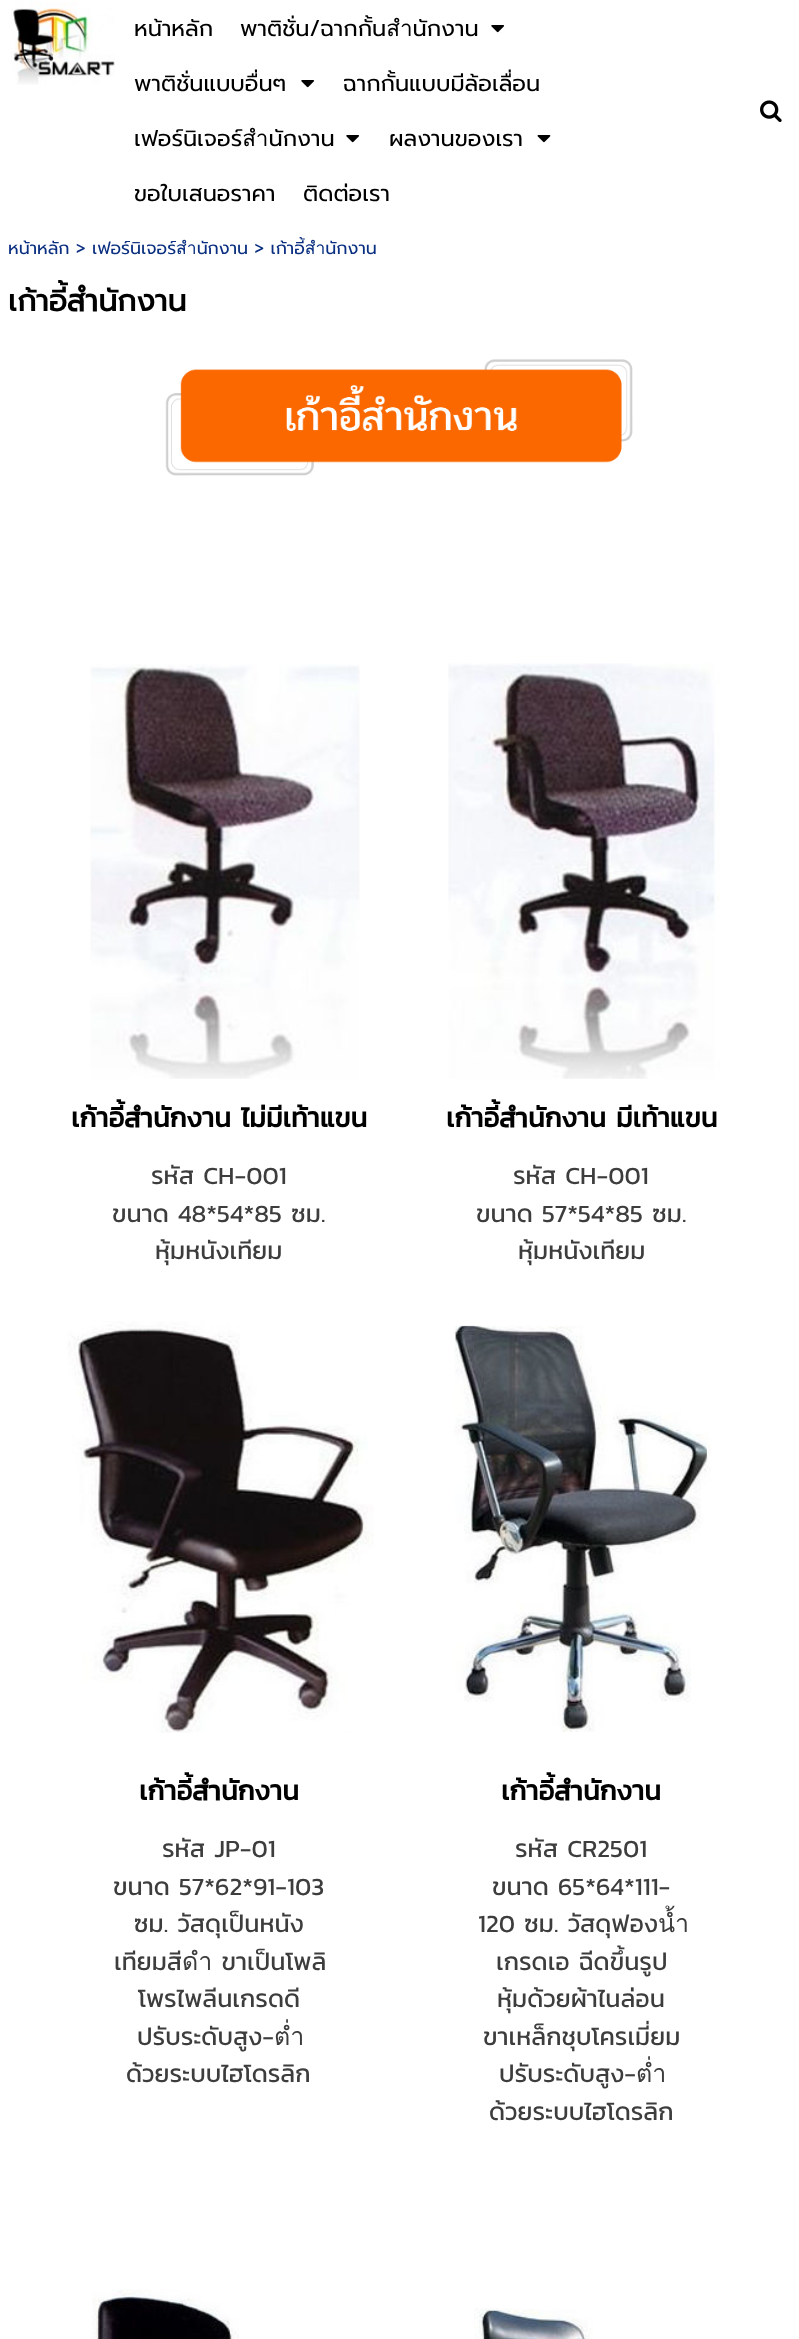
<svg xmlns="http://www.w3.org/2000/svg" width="799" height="2339">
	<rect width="100%" height="100%" fill="#FFFFFF" />
	<image x="11" y="1" width="104" height="84" href="assets/img1.png" />
	<g font-family="Prompt" font-size="22.5" fill="#000000">
		<text x="134" y="36">หน้าหลัก</text>
		<text x="240" y="36">พาติชั่น/ฉากกั้นสำนักงาน</text>
	</g>
	<image x="491" y="25" width="14" height="8" href="assets/img2.png" />
	<text x="134" y="91" font-family="Prompt" font-size="22.5" fill="#000000">พาติชั่นแบบอื่นๆ</text>
	<image x="301" y="80" width="14" height="8" href="assets/img2.png" />
	<g font-family="Prompt" font-size="22.5" fill="#000000">
		<text x="343" y="91">ฉากกั้นแบบมีล้อเลื่อน</text>
		<text x="134" y="146">เฟอร์นิเจอร์สำนักงาน</text>
	</g>
	<image x="346" y="135" width="14" height="8" href="assets/img2.png" />
	<text x="389" y="146" font-family="Prompt" font-size="22.5" fill="#000000">ผลงานของเรา</text>
	<image x="537" y="135" width="14" height="8" href="assets/img3.png" />
	<g font-family="Prompt" font-size="22.5" fill="#000000">
		<text x="134" y="201">ขอใบเสนอราคา</text>
		<text x="303" y="201">ติดต่อเรา</text>
	</g>
	<image x="760" y="100" width="22" height="22" href="assets/img4.png" />
	<text x="8" y="254" font-family="Prompt" font-size="17.5" fill="#0A2F80">หน้าหลัก &gt; เฟอร์นิเจอร์สำนักงาน &gt; เก้าอี้สำนักงาน</text>
	<text x="8" y="311" font-family="Prompt" font-size="30" font-weight="700" fill="#000000">เก้าอี้สำนักงาน</text>
	<image x="165" y="359" width="468" height="117" href="assets/img5.png" />
	<image x="90" y="664" width="270" height="415" href="assets/img6.png" />
	<text x="71" y="1127" font-family="Kanit" font-size="27.5" font-weight="700" fill="#000000">เก้าอี้สำนักงาน ไม่มีเท้าแขน</text>
	<g font-family="Kanit" font-size="25" fill="#3D3D3D">
		<text x="151" y="1184">รหัส CH-001</text>
		<text x="112" y="1222">ขนาด 48*54*85 ซม.</text>
		<text x="155" y="1259">หุ้มหนังเทียม</text>
	</g>
	<image x="448" y="663" width="272" height="416" href="assets/img7.png" />
	<text x="446" y="1127" font-family="Kanit" font-size="27.5" font-weight="700" fill="#000000">เก้าอี้สำนักงาน มีเท้าแขน</text>
	<g font-family="Kanit" font-size="25" fill="#3D3D3D">
		<text x="513" y="1184">รหัส CH-001</text>
		<text x="476" y="1222">ขนาด 57*54*85 ซม.</text>
		<text x="518" y="1259">หุ้มหนังเทียม</text>
	</g>
	<image x="67" y="1321" width="307" height="412" href="assets/img8.png" />
	<text x="139" y="1800" font-family="Kanit" font-size="27.5" font-weight="700" fill="#000000">เก้าอี้สำนักงาน</text>
	<g font-family="Kanit" font-size="25" fill="#3D3D3D">
		<text x="162" y="1857">รหัส JP-01</text>
		<text x="113" y="1895">ขนาด 57*62*91-103</text>
		<text x="134" y="1932">ซม. วัสดุเป็นหนัง</text>
		<text x="114" y="1970">เทียมสีดำ ขาเป็นโพลิ</text>
		<text x="138" y="2007">โพรไพลีนเกรดดี</text>
		<text x="137" y="2045">ปรับระดับสูง-ต่ำ</text>
		<text x="126" y="2082">ด้วยระบบไฮโดรลิก</text>
	</g>
	<image x="454" y="1325" width="257" height="407" href="assets/img9.png" />
	<text x="501" y="1800" font-family="Kanit" font-size="27.5" font-weight="700" fill="#000000">เก้าอี้สำนักงาน</text>
	<g font-family="Kanit" font-size="25" fill="#3D3D3D">
		<text x="515" y="1857">รหัส CR2501</text>
		<text x="492" y="1895">ขนาด 65*64*111-</text>
		<text x="478" y="1932">120 ซม. วัสดุฟองน้ำ</text>
		<text x="496" y="1970">เกรดเอ ฉีดขึ้นรูป</text>
		<text x="497" y="2007">หุ้มด้วยผ้าไนล่อน</text>
		<text x="483" y="2045">ขาเหล็กชุบโครเมี่ยม</text>
		<text x="499" y="2082">ปรับระดับสูง-ต่ำ</text>
		<text x="489" y="2120">ด้วยระบบไฮโดรลิก</text>
	</g>
	<image x="92" y="2289" width="147" height="50" href="assets/img10.png" />
	<image x="474" y="2308" width="119" height="31" href="assets/img11.png" />
</svg>
